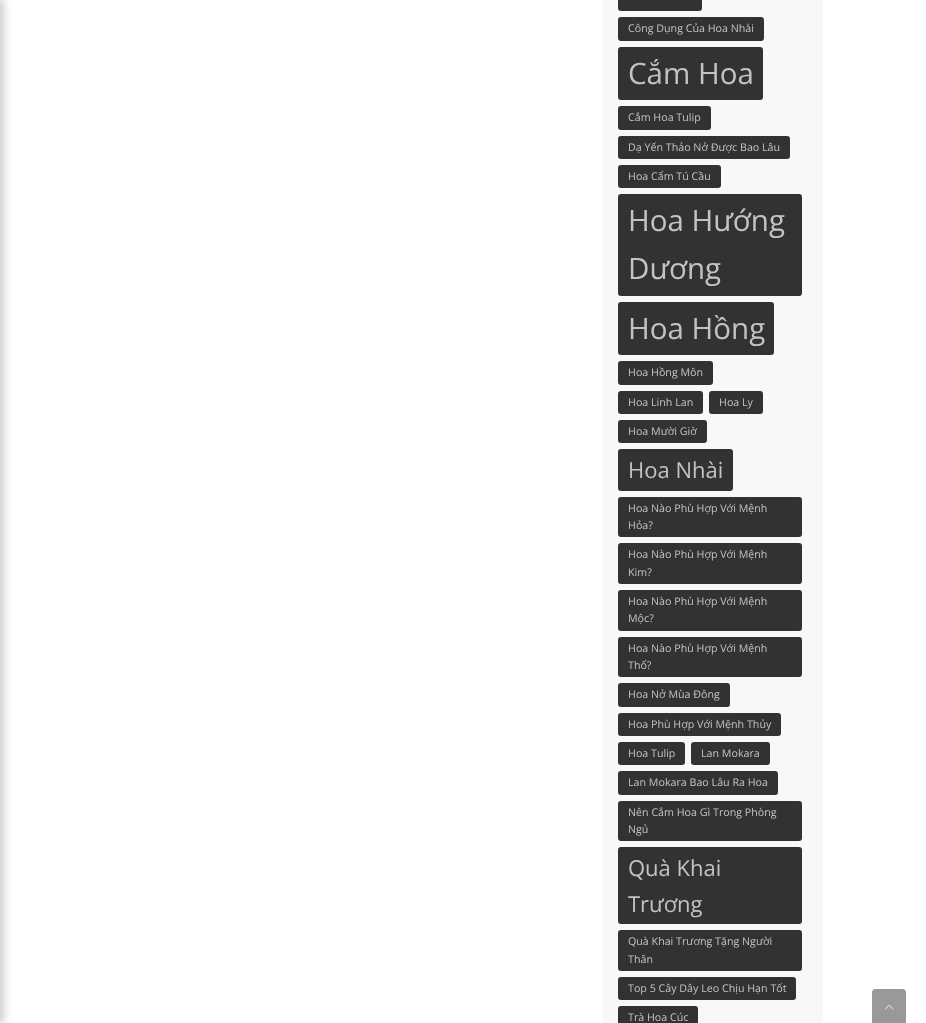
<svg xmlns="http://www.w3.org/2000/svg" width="926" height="1023">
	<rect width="100%" height="100%" fill="#FFFFFF" />
	<rect x="-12" y="0" width="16" height="1023" fill="#000000" fill-opacity="0.2" filter="blur(4px)" />
	<rect x="603" y="0" width="220" height="1023" fill="#F8F8F8" />
	<rect x="618" y="-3" width="84" height="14" rx="3" fill="#323232" />
	<rect x="618" y="17" width="146" height="24" rx="3" fill="#323232" />
	<text x="628" y="32" font-family="Open Sans" font-size="10.7" fill="#C3C3C3">Công Dụng Của Hoa Nhài</text>
	<rect x="618" y="47" width="145" height="53" rx="3" fill="#323232" />
	<text x="628" y="84" font-family="Open Sans" font-size="29.5" fill="#C3C3C3">Cắm Hoa</text>
	<rect x="618" y="106" width="93" height="24" rx="3" fill="#323232" />
	<text x="628" y="121" font-family="Open Sans" font-size="10.7" fill="#C3C3C3">Cắm Hoa Tulip</text>
	<rect x="618" y="136" width="172" height="23" rx="3" fill="#323232" />
	<text x="628" y="151" font-family="Open Sans" font-size="10.7" fill="#C3C3C3">Dạ Yến Thảo Nở Được Bao Lâu</text>
	<rect x="618" y="165" width="103" height="23" rx="3" fill="#323232" />
	<text x="628" y="180" font-family="Open Sans" font-size="10.7" fill="#C3C3C3">Hoa Cẩm Tú Cầu</text>
	<rect x="618" y="194" width="184" height="102" rx="3" fill="#323232" />
	<g font-family="Open Sans" font-size="29.5" fill="#C3C3C3">
		<text x="628" y="231">Hoa Hướng</text>
		<text x="628" y="279">Dương</text>
	</g>
	<rect x="618" y="302" width="156" height="53" rx="3" fill="#323232" />
	<text x="628" y="339" font-family="Open Sans" font-size="29.5" fill="#C3C3C3">Hoa Hồng</text>
	<rect x="618" y="361" width="95" height="24" rx="3" fill="#323232" />
	<text x="628" y="376" font-family="Open Sans" font-size="10.7" fill="#C3C3C3">Hoa Hồng Môn</text>
	<rect x="618" y="391" width="85" height="23" rx="3" fill="#323232" />
	<text x="628" y="406" font-family="Open Sans" font-size="10.7" fill="#C3C3C3">Hoa Linh Lan</text>
	<rect x="709" y="391" width="54" height="23" rx="3" fill="#323232" />
	<text x="719" y="406" font-family="Open Sans" font-size="10.7" fill="#C3C3C3">Hoa Ly</text>
	<rect x="618" y="420" width="89" height="23" rx="3" fill="#323232" />
	<text x="628" y="435" font-family="Open Sans" font-size="10.7" fill="#C3C3C3">Hoa Mười Giờ</text>
	<rect x="618" y="449" width="115" height="42" rx="3" fill="#323232" />
	<text x="628" y="478" font-family="Open Sans" font-size="22" fill="#C3C3C3">Hoa Nhài</text>
	<rect x="618" y="497" width="184" height="40" rx="3" fill="#323232" />
	<g font-family="Open Sans" font-size="10.7" fill="#C3C3C3">
		<text x="628" y="512">Hoa Nào Phù Hợp Với Mệnh</text>
		<text x="628" y="529">Hỏa?</text>
	</g>
	<rect x="618" y="543" width="184" height="41" rx="3" fill="#323232" />
	<g font-family="Open Sans" font-size="10.7" fill="#C3C3C3">
		<text x="628" y="558">Hoa Nào Phù Hợp Với Mệnh</text>
		<text x="628" y="576">Kim?</text>
	</g>
	<rect x="618" y="590" width="184" height="41" rx="3" fill="#323232" />
	<g font-family="Open Sans" font-size="10.7" fill="#C3C3C3">
		<text x="628" y="605">Hoa Nào Phù Hợp Với Mệnh</text>
		<text x="628" y="622">Mộc?</text>
	</g>
	<rect x="618" y="637" width="184" height="40" rx="3" fill="#323232" />
	<g font-family="Open Sans" font-size="10.7" fill="#C3C3C3">
		<text x="628" y="652">Hoa Nào Phù Hợp Với Mệnh</text>
		<text x="628" y="669">Thổ?</text>
	</g>
	<rect x="618" y="683" width="112" height="24" rx="3" fill="#323232" />
	<text x="628" y="698" font-family="Open Sans" font-size="10.7" fill="#C3C3C3">Hoa Nở Mùa Đông</text>
	<rect x="618" y="713" width="163" height="23" rx="3" fill="#323232" />
	<text x="628" y="728" font-family="Open Sans" font-size="10.7" fill="#C3C3C3">Hoa Phù Hợp Với Mệnh Thủy</text>
	<rect x="618" y="742" width="67" height="23" rx="3" fill="#323232" />
	<text x="628" y="757" font-family="Open Sans" font-size="10.7" fill="#C3C3C3">Hoa Tulip</text>
	<rect x="691" y="742" width="79" height="23" rx="3" fill="#323232" />
	<text x="701" y="757" font-family="Open Sans" font-size="10.7" fill="#C3C3C3">Lan Mokara</text>
	<rect x="618" y="771" width="160" height="24" rx="3" fill="#323232" />
	<text x="628" y="786" font-family="Open Sans" font-size="10.7" fill="#C3C3C3">Lan Mokara Bao Lâu Ra Hoa</text>
	<rect x="618" y="801" width="184" height="40" rx="3" fill="#323232" />
	<g font-family="Open Sans" font-size="10.7" fill="#C3C3C3">
		<text x="628" y="816">Nên Cắm Hoa Gì Trong Phòng</text>
		<text x="628" y="833">Ngủ</text>
	</g>
	<rect x="618" y="847" width="184" height="77" rx="3" fill="#323232" />
	<g font-family="Open Sans" font-size="22" fill="#C3C3C3">
		<text x="628" y="876">Quà Khai</text>
		<text x="628" y="912">Trương</text>
	</g>
	<rect x="618" y="930" width="184" height="41" rx="3" fill="#323232" />
	<g font-family="Open Sans" font-size="10.7" fill="#C3C3C3">
		<text x="628" y="945">Quà Khai Trương Tặng Người</text>
		<text x="628" y="963">Thân</text>
	</g>
	<rect x="618" y="977" width="178" height="23" rx="3" fill="#323232" />
	<text x="628" y="992" font-family="Open Sans" font-size="10.7" fill="#C3C3C3">Top 5 Cây Dây Leo Chịu Hạn Tốt</text>
	<rect x="618" y="1006" width="80" height="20" rx="3" fill="#323232" />
	<text x="628" y="1021" font-family="Open Sans" font-size="10.7" fill="#C3C3C3">Trà Hoa Cúc</text>
	<path d="M875 989H903C904.5 989 906 990.5 906 992V1023H872V992C872 990.5 873.5 989 875 989Z" fill="#999999" />
	<image x="884" y="1004" width="10" height="6" href="assets/img1.png" />
</svg>
